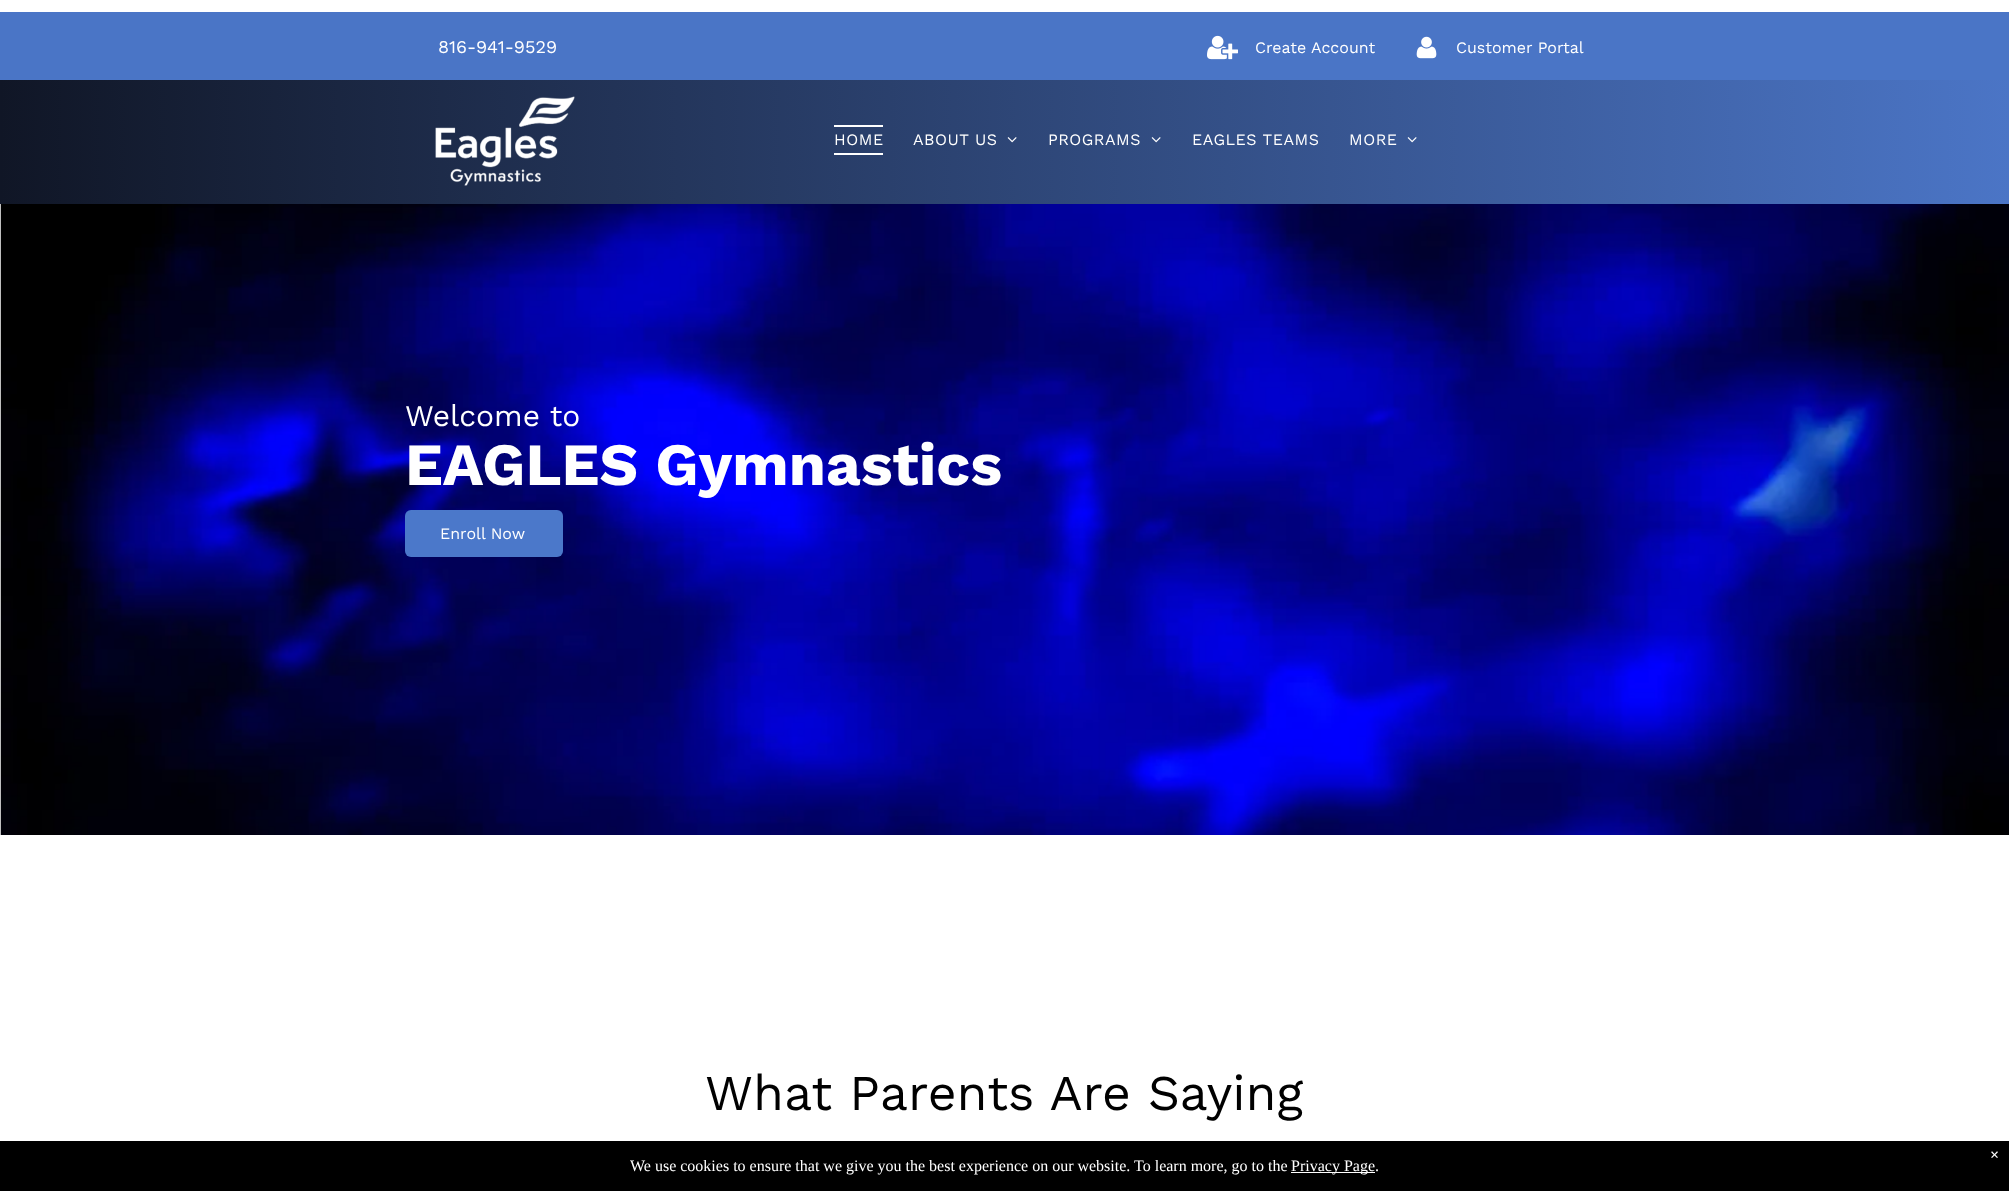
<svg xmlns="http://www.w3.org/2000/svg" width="2009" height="1191">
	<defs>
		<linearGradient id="g1" gradientUnits="userSpaceOnUse" x1="0" y1="142" x2="2009" y2="142"><stop offset="0" stop-color="#101626" /><stop offset="1" stop-color="#4B75C6" /></linearGradient>
	</defs>
	<rect width="100%" height="100%" fill="#FFFFFF" />
	<rect x="0" y="12" width="2009" height="68" fill="#4A75C6" />
	<text x="438" y="53" font-family="Work Sans" font-size="18" fill="#FFFFFF">816-941-9529</text>
	<image x="1207" y="35" width="31" height="25" href="assets/img1.png" />
	<text x="1255" y="53" font-family="Work Sans" font-size="16" fill="#FFFFFF">Create Account</text>
	<image x="1416" y="36" width="21" height="23" href="assets/img2.png" />
	<text x="1456" y="53" font-family="Work Sans" font-size="16" fill="#FFFFFF">Customer Portal</text>
	<rect x="0" y="80" width="2009" height="124" fill="url(#g1)" />
	<image x="435" y="96" width="140" height="90" href="assets/img3.png" />
	<rect x="834" y="125" width="49" height="2" fill="#FFFFFF" />
	<text x="834" y="145" font-family="Work Sans" font-size="16" letter-spacing="0.5" fill="#FFFFFF">HOME</text>
	<rect x="834" y="153" width="49" height="2" fill="#FFFFFF" />
	<text x="913" y="145" font-family="Work Sans" font-size="16" letter-spacing="0.5" fill="#FFFFFF">ABOUT US</text>
	<image x="1007" y="137" width="10" height="6" href="assets/img4.png" />
	<text x="1048" y="145" font-family="Work Sans" font-size="16" letter-spacing="0.5" fill="#FFFFFF">PROGRAMS</text>
	<image x="1151" y="137" width="10" height="6" href="assets/img5.png" />
	<g font-family="Work Sans" font-size="16" letter-spacing="0.5" fill="#FFFFFF">
		<text x="1192" y="145">EAGLES TEAMS</text>
		<text x="1349" y="145">MORE</text>
	</g>
	<image x="1407" y="137" width="10" height="6" href="assets/img6.png" />
	<image x="0" y="204" width="2009" height="631" href="assets/img7.png" />
	<text x="405" y="426" font-family="Work Sans" font-size="30" fill="#FFFFFF">Welcome to</text>
	<text x="405" y="485" font-family="Work Sans" font-size="60" font-weight="700" fill="#FFFFFF">EAGLES Gymnastics</text>
	<rect x="405" y="510" width="158" height="47" rx="6" fill="#4B78CA" />
	<text x="440" y="539" font-family="Work Sans" font-size="16" fill="#FFFFFF">Enroll Now</text>
	<text x="705" y="1110" font-family="Work Sans" font-size="50" fill="#000000">What Parents Are Saying</text>
	<rect x="0" y="1141" width="2009" height="50" fill="#000000" />
	<text x="1990" y="1160" font-family="Liberation Serif" font-size="16" font-weight="700" fill="#FFFFFF">×</text>
	<text x="630" y="1171" font-family="Liberation Serif" font-size="16" fill="#FFFFFF">We use cookies to ensure that we give you the best experience on our website. To learn more, go to the</text>
	<rect x="1291" y="1172" width="84" height="1" fill="#FFFFFF" />
	<text x="1291" y="1171" font-family="Liberation Serif" font-size="16" fill="#FFFFFF">Privacy Page.</text>
</svg>
